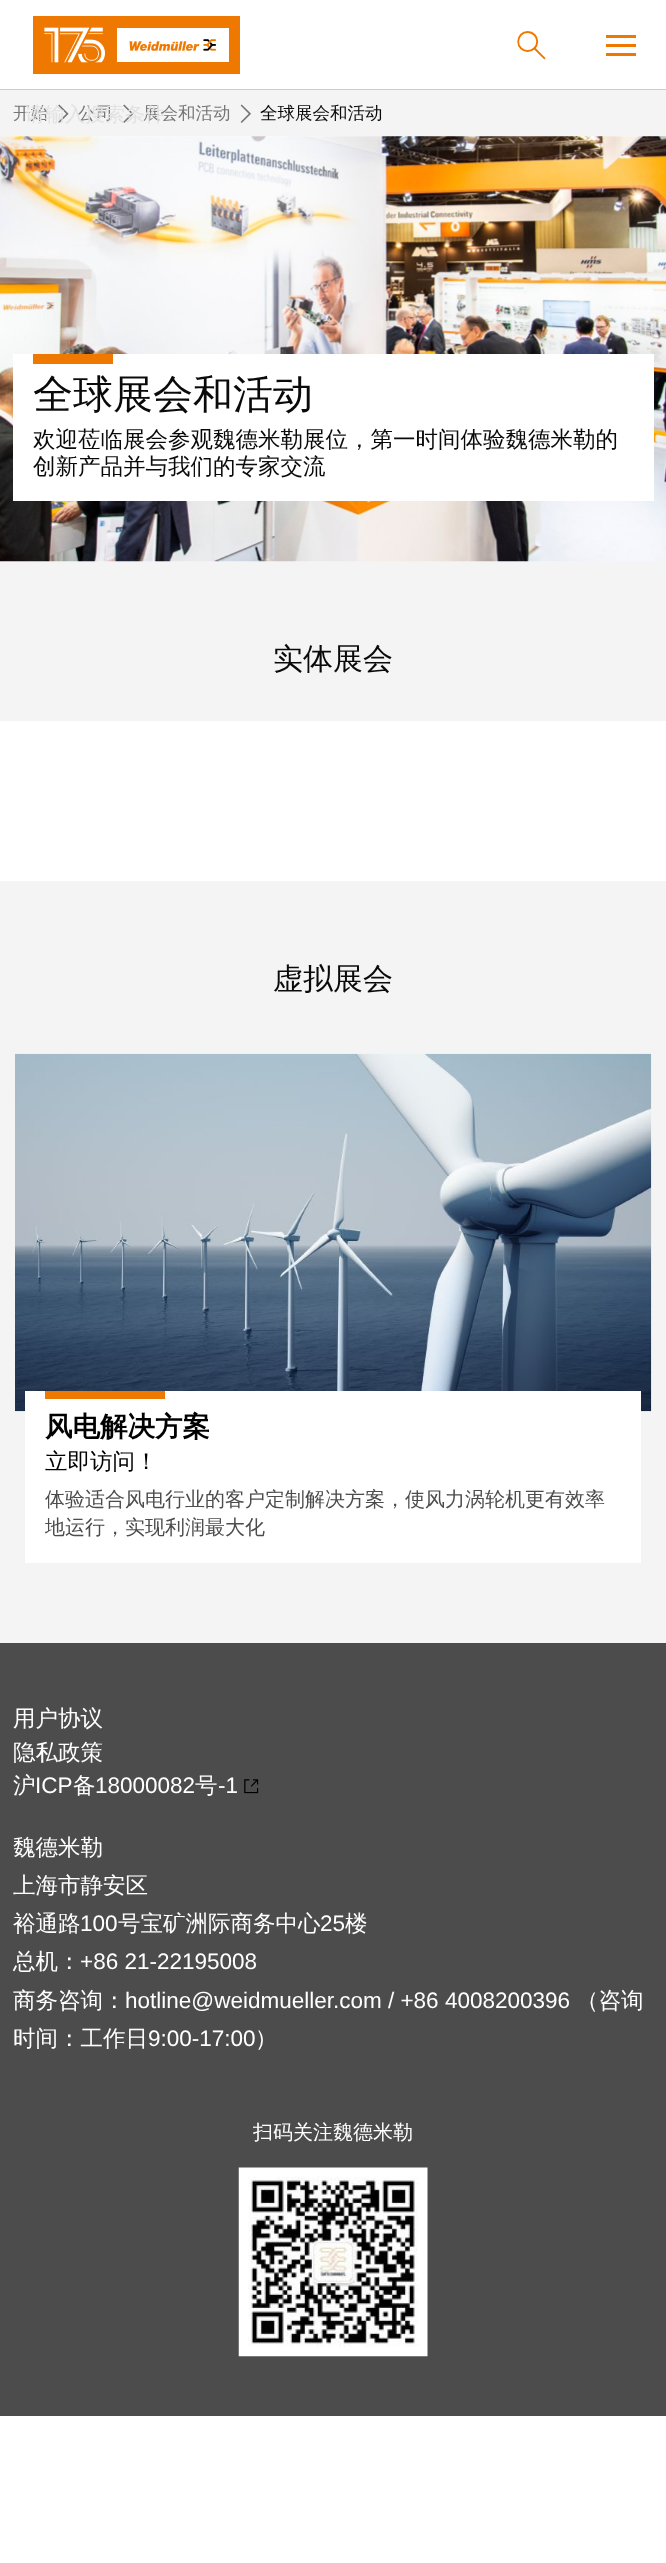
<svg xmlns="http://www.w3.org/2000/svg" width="666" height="2563">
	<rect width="100%" height="100%" fill="#FFFFFF" />
	<rect x="0" y="90" width="666" height="46" fill="#F4F4F4" />
	<text x="13" y="119" font-family="WenQuanYi Zen Hei" font-size="17.5" font-weight="500" fill="#767676">开始</text>
	<image x="58" y="104" width="11" height="19" href="assets/img1.png" />
	<text x="78" y="119" font-family="WenQuanYi Zen Hei" font-size="17.5" font-weight="500" fill="#767676">公司</text>
	<image x="123" y="104" width="11" height="19" href="assets/img1.png" />
	<text x="143" y="119" font-family="WenQuanYi Zen Hei" font-size="17.5" font-weight="500" fill="#767676">展会和活动</text>
	<image x="240" y="104" width="11" height="19" href="assets/img2.png" />
	<text x="260" y="119" font-family="WenQuanYi Zen Hei" font-size="17.5" font-weight="500" fill="#0A0A0A">全球展会和活动</text>
	<rect x="0" y="89" width="666" height="1" fill="#CDCDCD" />
	<image x="33" y="16" width="207" height="58" href="assets/img3.png" />
	<image x="517" y="31" width="29" height="29" href="assets/img4.png" />
	<rect x="606" y="44" width="30" height="3" fill="#EF7800" />
	<rect x="606" y="35" width="30" height="3" fill="#EF7800" />
	<rect x="606" y="53" width="30" height="3" fill="#EF7800" />
	<text x="25" y="121" font-family="WenQuanYi Zen Hei" font-size="20" font-weight="500" fill="#E2E2E2">请输入搜索条件</text>
	<rect x="0" y="561" width="666" height="160" fill="#F4F4F4" />
	<image x="0" y="136" width="666" height="426" href="assets/img5.png" />
	<rect x="13" y="354" width="641" height="147" fill="#FFFFFF" />
	<rect x="33" y="354" width="80" height="10" fill="#EF7800" />
	<text x="33" y="408" font-family="WenQuanYi Zen Hei" font-size="40" font-weight="500" fill="#0A0A0A">全球展会和活动</text>
	<g font-family="WenQuanYi Zen Hei" font-size="22.5" font-weight="500" fill="#0A0A0A">
		<text x="33" y="447">欢迎莅临展会参观魏德米勒展位，第一时间体验魏德米勒的</text>
		<text x="33" y="474">创新产品并与我们的专家交流</text>
	</g>
	<text x="273" y="669" font-family="WenQuanYi Zen Hei" font-size="30" font-weight="500" fill="#0A0A0A">实体展会</text>
	<rect x="0" y="881" width="666" height="762" fill="#F4F4F4" />
	<text x="273" y="989" font-family="WenQuanYi Zen Hei" font-size="30" font-weight="500" fill="#0A0A0A">虚拟展会</text>
	<image x="15" y="1053" width="637" height="359" href="assets/img6.png" />
	<rect x="25" y="1391" width="616" height="172" fill="#FFFFFF" />
	<rect x="45" y="1391" width="120" height="8" fill="#EF7800" />
	<text x="45" y="1436" font-family="WenQuanYi Zen Hei" font-size="27.5" font-weight="700" fill="#000000">风电解决方案</text>
	<text x="45" y="1469" font-family="WenQuanYi Zen Hei" font-size="22.5" font-weight="500" fill="#000000">立即访问！</text>
	<g font-family="WenQuanYi Zen Hei" font-size="20" font-weight="500" fill="#4C4C4C">
		<text x="45" y="1506">体验适合风电行业的客户定制解决方案，使风力涡轮机更有效率</text>
		<text x="45" y="1534">地运行，实现利润最大化</text>
	</g>
	<rect x="0" y="1643" width="666" height="773" fill="#4C4C4C" />
	<g font-family="WenQuanYi Zen Hei" font-size="22.5" font-weight="500" fill="#FFFFFF">
		<text x="13" y="1726">用户协议</text>
		<text x="13" y="1760">隐私政策</text>
		<text x="13" y="1793">沪</text>
	</g>
	<text x="35" y="1793" font-family="Liberation Sans" font-size="22.5" fill="#FFFFFF">ICP</text>
	<text x="73" y="1793" font-family="WenQuanYi Zen Hei" font-size="22.5" font-weight="500" fill="#FFFFFF">备</text>
	<text x="95" y="1793" font-family="Liberation Sans" font-size="22.5" fill="#FFFFFF">18000082</text>
	<text x="195" y="1793" font-family="WenQuanYi Zen Hei" font-size="22.5" font-weight="500" fill="#FFFFFF">号</text>
	<text x="218" y="1793" font-family="Liberation Sans" font-size="22.5" fill="#FFFFFF">-1</text>
	<image x="244" y="1779" width="15" height="15" href="assets/img7.png" />
	<g font-family="WenQuanYi Zen Hei" font-size="22.5" font-weight="500" fill="#FFFFFF">
		<text x="13" y="1855">魏德米勒</text>
		<text x="13" y="1893">上海市静安区</text>
		<text x="13" y="1931">裕通路</text>
	</g>
	<text x="80" y="1931" font-family="Liberation Sans" font-size="22.5" fill="#FFFFFF">100</text>
	<text x="118" y="1931" font-family="WenQuanYi Zen Hei" font-size="22.5" font-weight="500" fill="#FFFFFF">号宝矿洲际商务中心</text>
	<text x="320" y="1931" font-family="Liberation Sans" font-size="22.5" fill="#FFFFFF">25</text>
	<g font-family="WenQuanYi Zen Hei" font-size="22.5" font-weight="500" fill="#FFFFFF">
		<text x="345" y="1931">楼</text>
		<text x="13" y="1969">总机：</text>
	</g>
	<text x="80" y="1969" font-family="Liberation Sans" font-size="22.5" fill="#FFFFFF">+86 21-22195008</text>
	<text x="13" y="2008" font-family="WenQuanYi Zen Hei" font-size="22.5" font-weight="500" fill="#FFFFFF">商务咨询：</text>
	<text x="125" y="2008" font-family="Liberation Sans" font-size="22.5" fill="#FFFFFF">hotline@weidmueller.com / +86 4008200396</text>
	<g font-family="WenQuanYi Zen Hei" font-size="22.5" font-weight="500" fill="#FFFFFF">
		<text x="576" y="2008">（咨询</text>
		<text x="13" y="2046">时间：工作日</text>
	</g>
	<text x="148" y="2046" font-family="Liberation Sans" font-size="22.5" fill="#FFFFFF">9:00-17:00</text>
	<text x="255" y="2046" font-family="WenQuanYi Zen Hei" font-size="22.5" font-weight="500" fill="#FFFFFF">）</text>
	<text x="253" y="2139" font-family="WenQuanYi Zen Hei" font-size="20" font-weight="500" fill="#FFFFFF">扫码关注魏德米勒</text>
	<image x="238" y="2167" width="190" height="190" href="assets/img8.png" />
</svg>
